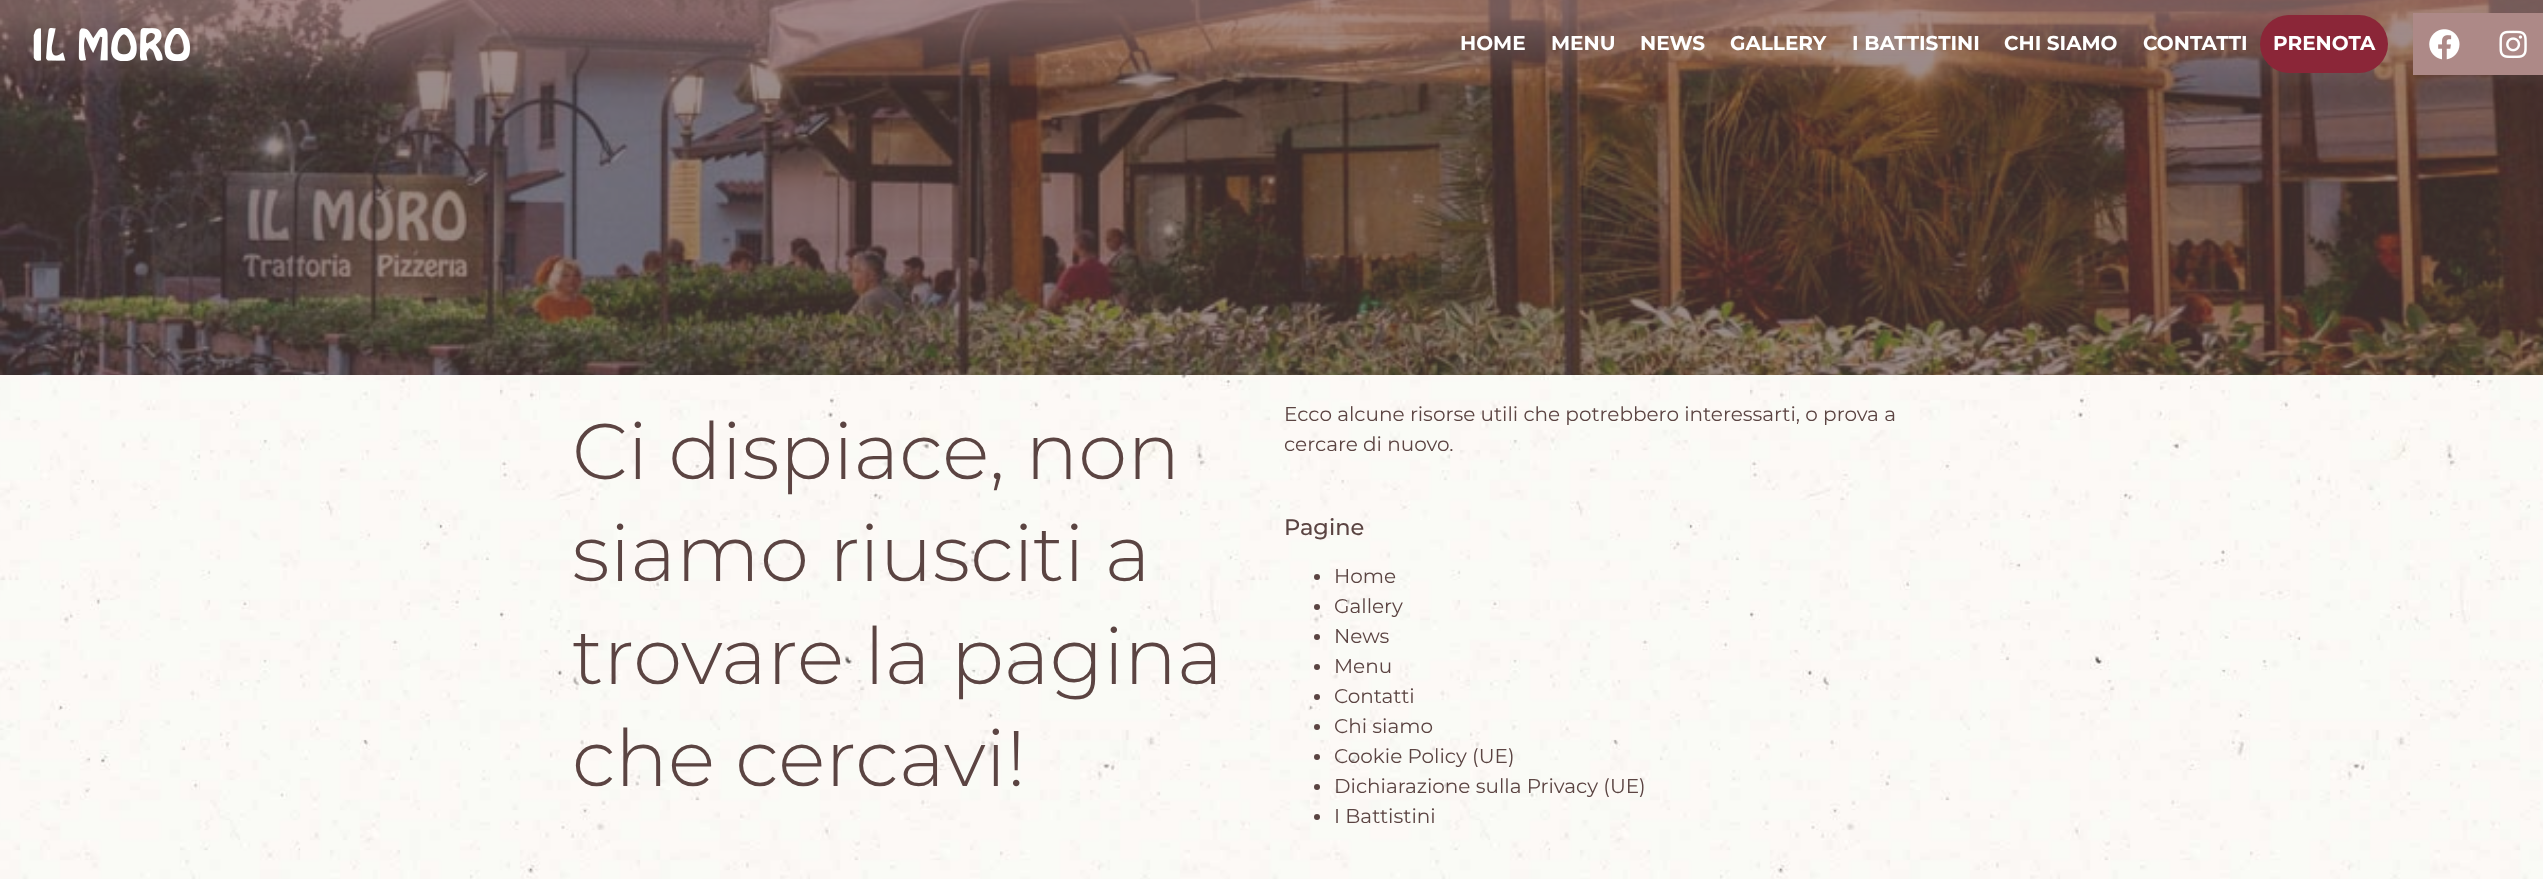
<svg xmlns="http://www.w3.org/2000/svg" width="2543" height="879">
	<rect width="100%" height="100%" fill="#FFFFFF" />
	<image x="0" y="375" width="2543" height="504" href="assets/img1.png" />
	<image x="0" y="0" width="2543" height="375" href="assets/img5.png" />
	<image x="33" y="28" width="157" height="33" href="assets/img2.png" />
	<g font-family="Montserrat" font-size="20" font-weight="700" fill="#FFFFFF">
		<text x="1460" y="50">HOME</text>
		<text x="1551" y="50">MENU</text>
		<text x="1640" y="50">NEWS</text>
		<text x="1730" y="50">GALLERY</text>
		<text x="1852" y="50">I BATTISTINI</text>
		<text x="2004" y="50">CHI SIAMO</text>
		<text x="2143" y="50">CONTATTI</text>
	</g>
	<rect x="2260" y="15" width="128" height="58" rx="29" fill="#8B2638" />
	<text x="2273" y="50" font-family="Montserrat" font-size="20" font-weight="700" fill="#FFFFFF">PRENOTA</text>
	<rect x="2413" y="13" width="130" height="62" fill="#AD8987" />
	<image x="2429" y="29" width="31" height="31" href="assets/img3.png" />
	<image x="2499" y="30" width="28" height="29" href="assets/img4.png" />
	<g font-family="Montserrat" font-size="78.75" font-weight="300" fill="#5B4442">
		<text x="572" y="479">Ci dispiace, non</text>
		<text x="572" y="581">siamo riusciti a</text>
		<text x="572" y="684">trovare la pagina</text>
		<text x="572" y="786">che cercavi!</text>
	</g>
	<g font-family="Montserrat" font-size="20" fill="#5B4442">
		<text x="1284" y="421">Ecco alcune risorse utili che potrebbero interessarti, o prova a</text>
		<text x="1284" y="451">cercare di nuovo.</text>
	</g>
	<text x="1284" y="535" font-family="Montserrat" font-size="22.5" font-weight="500" fill="#5B4442">Pagine</text>
	<circle cx="1317" cy="577" r="3" fill="#5B4442" />
	<text x="1334" y="583" font-family="Montserrat" font-size="20" fill="#5B4442">Home</text>
	<circle cx="1317" cy="607" r="3" fill="#5B4442" />
	<text x="1334" y="613" font-family="Montserrat" font-size="20" fill="#5B4442">Gallery</text>
	<circle cx="1317" cy="637" r="3" fill="#5B4442" />
	<text x="1334" y="643" font-family="Montserrat" font-size="20" fill="#5B4442">News</text>
	<circle cx="1317" cy="667" r="3" fill="#5B4442" />
	<text x="1334" y="673" font-family="Montserrat" font-size="20" fill="#5B4442">Menu</text>
	<circle cx="1317" cy="697" r="3" fill="#5B4442" />
	<text x="1334" y="703" font-family="Montserrat" font-size="20" fill="#5B4442">Contatti</text>
	<circle cx="1317" cy="727" r="3" fill="#5B4442" />
	<text x="1334" y="733" font-family="Montserrat" font-size="20" fill="#5B4442">Chi siamo</text>
	<circle cx="1317" cy="757" r="3" fill="#5B4442" />
	<text x="1334" y="763" font-family="Montserrat" font-size="20" fill="#5B4442">Cookie Policy (UE)</text>
	<circle cx="1317" cy="787" r="3" fill="#5B4442" />
	<text x="1334" y="793" font-family="Montserrat" font-size="20" fill="#5B4442">Dichiarazione sulla Privacy (UE)</text>
	<circle cx="1317" cy="817" r="3" fill="#5B4442" />
	<text x="1334" y="823" font-family="Montserrat" font-size="20" fill="#5B4442">I Battistini</text>
</svg>
